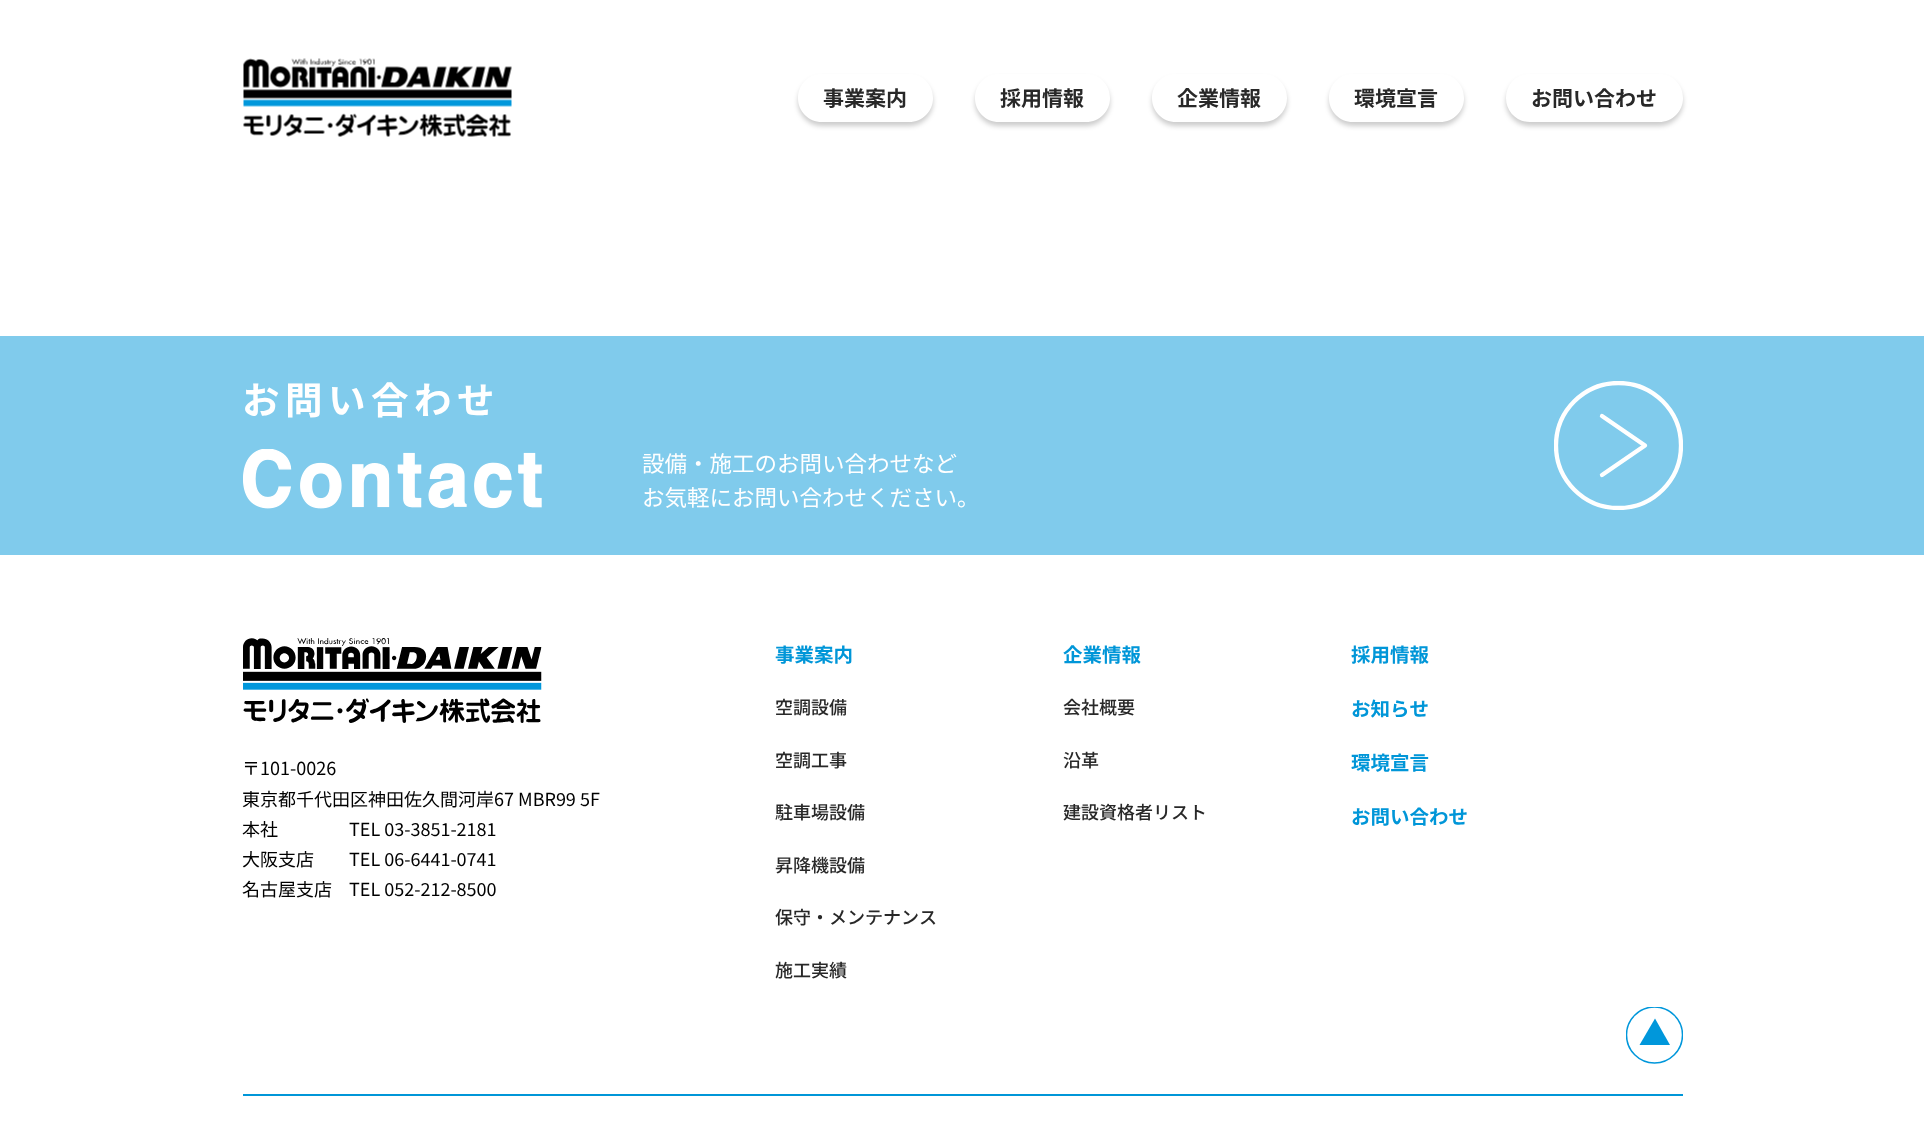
<svg xmlns="http://www.w3.org/2000/svg" width="1924" height="1131">
	<style>*{font-kerning:none!important;font-variant-ligatures:none!important}</style>
	<defs>
		<clipPath id="clip1"><path d="M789 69H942V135H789ZM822 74H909C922.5 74 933 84.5 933 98C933 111.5 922.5 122 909 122H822C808.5 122 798 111.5 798 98C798 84.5 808.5 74 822 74Z" clip-rule="evenodd" /></clipPath>
		<clipPath id="clip2"><path d="M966 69H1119V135H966ZM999 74H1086C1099.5 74 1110 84.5 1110 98C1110 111.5 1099.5 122 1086 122H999C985.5 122 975 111.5 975 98C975 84.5 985.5 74 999 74Z" clip-rule="evenodd" /></clipPath>
		<clipPath id="clip3"><path d="M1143 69H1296V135H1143ZM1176 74H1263C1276.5 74 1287 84.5 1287 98C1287 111.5 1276.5 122 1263 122H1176C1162.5 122 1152 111.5 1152 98C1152 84.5 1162.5 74 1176 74Z" clip-rule="evenodd" /></clipPath>
		<clipPath id="clip4"><path d="M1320 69H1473V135H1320ZM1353 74H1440C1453.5 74 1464 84.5 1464 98C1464 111.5 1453.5 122 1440 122H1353C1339.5 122 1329 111.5 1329 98C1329 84.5 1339.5 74 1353 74Z" clip-rule="evenodd" /></clipPath>
		<clipPath id="clip5"><path d="M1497 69H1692V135H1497ZM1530 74H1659C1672.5 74 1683 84.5 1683 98C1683 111.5 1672.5 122 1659 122H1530C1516.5 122 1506 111.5 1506 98C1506 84.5 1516.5 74 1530 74Z" clip-rule="evenodd" /></clipPath>
		<clipPath id="clip6"><rect x="1554" y="381" width="129" height="129" /></clipPath>
		<clipPath id="clip7"><rect x="1626" y="1007" width="57" height="57" /></clipPath>
	</defs>
	<rect width="100%" height="100%" fill="#FFFFFF" />
	<image x="243" y="58" width="269" height="79" href="assets/img1.png" />
	<g clip-path="url(#clip1)">
		<rect x="798" y="78" width="135" height="48" rx="24" fill="#000000" fill-opacity="0.2" filter="blur(2.5px)" />
	</g>
	<text x="823" y="106" font-family="Noto Sans JP" font-size="21" font-weight="700" fill="#282828">事業案内</text>
	<g clip-path="url(#clip2)">
		<rect x="975" y="78" width="135" height="48" rx="24" fill="#000000" fill-opacity="0.2" filter="blur(2.5px)" />
	</g>
	<text x="1000" y="106" font-family="Noto Sans JP" font-size="21" font-weight="700" fill="#282828">採用情報</text>
	<g clip-path="url(#clip3)">
		<rect x="1152" y="78" width="135" height="48" rx="24" fill="#000000" fill-opacity="0.2" filter="blur(2.5px)" />
	</g>
	<text x="1177" y="106" font-family="Noto Sans JP" font-size="21" font-weight="700" fill="#282828">企業情報</text>
	<g clip-path="url(#clip4)">
		<rect x="1329" y="78" width="135" height="48" rx="24" fill="#000000" fill-opacity="0.2" filter="blur(2.5px)" />
	</g>
	<text x="1354" y="106" font-family="Noto Sans JP" font-size="21" font-weight="700" fill="#282828">環境宣言</text>
	<g clip-path="url(#clip5)">
		<rect x="1506" y="78" width="177" height="48" rx="24" fill="#000000" fill-opacity="0.2" filter="blur(2.5px)" />
	</g>
	<text x="1531" y="106" font-family="Noto Sans JP" font-size="21" font-weight="700" fill="#282828">お問い合わせ</text>
	<rect x="0" y="336" width="1924" height="219" fill="#80CBEC" />
	<text x="242" y="414" font-family="Noto Sans JP" font-size="37.5" font-weight="700" letter-spacing="5.5" fill="#FFFFFF">お問い合わせ</text>
	<image x="243" y="449" width="299" height="60" href="assets/img2.png" />
	<path d="M1602 475L1645 445.5L1602 416" fill="none" stroke="#FFFFFF" stroke-width="4.3" stroke-linecap="round" stroke-linejoin="round" />
	<g clip-path="url(#clip6)">
		<circle cx="1618.5" cy="445.5" r="62.5" fill="none" stroke="#FFFFFF" stroke-width="4.3" />
	</g>
	<g font-family="Noto Sans JP" font-size="22.5" fill="#FFFFFF">
		<text x="642" y="472">設備・施工のお問い合わせなど</text>
		<text x="642" y="506">お気軽にお問い合わせください。</text>
	</g>
	<image x="243" y="638" width="299" height="85" href="assets/img3.png" />
	<g font-family="Noto Sans JP" font-size="18" fill="#000000">
		<text x="242" y="775">〒101-0026</text>
		<text x="242" y="806">東京都千代田区神田佐久間河岸67 MBR99 5F</text>
		<text x="242" y="836">本社</text>
		<text x="349" y="836">TEL 03-3851-2181</text>
		<text x="242" y="866">大阪支店</text>
		<text x="349" y="866">TEL 06-6441-0741</text>
		<text x="242" y="896">名古屋支店</text>
		<text x="349" y="896">TEL 052-212-8500</text>
	</g>
	<text x="775" y="662" font-family="Noto Sans JP" font-size="19.5" font-weight="700" fill="#0096D8">事業案内</text>
	<g font-family="Noto Sans JP" font-size="18" font-weight="500" fill="#282828">
		<text x="775" y="714">空調設備</text>
		<text x="775" y="767">空調工事</text>
		<text x="775" y="819">駐車場設備</text>
		<text x="775" y="872">昇降機設備</text>
		<text x="775" y="924">保守・メンテナンス</text>
		<text x="775" y="977">施工実績</text>
	</g>
	<text x="1063" y="662" font-family="Noto Sans JP" font-size="19.5" font-weight="700" fill="#0096D8">企業情報</text>
	<g font-family="Noto Sans JP" font-size="18" font-weight="500" fill="#282828">
		<text x="1063" y="714">会社概要</text>
		<text x="1063" y="767">沿革</text>
		<text x="1063" y="819">建設資格者リスト</text>
	</g>
	<g font-family="Noto Sans JP" font-size="19.5" font-weight="700" fill="#0096D8">
		<text x="1351" y="662">採用情報</text>
		<text x="1351" y="716">お知らせ</text>
		<text x="1351" y="770">環境宣言</text>
		<text x="1351" y="824">お問い合わせ</text>
	</g>
	<path d="M1655 1018.5L1639.5 1045H1670Z" fill="#0097DB" />
	<g clip-path="url(#clip7)">
		<circle cx="1654.5" cy="1035" r="28" fill="none" stroke="#0097DB" stroke-width="1.5" />
	</g>
	<rect x="243" y="1094" width="1440" height="2" fill="#0096D8" />
</svg>
